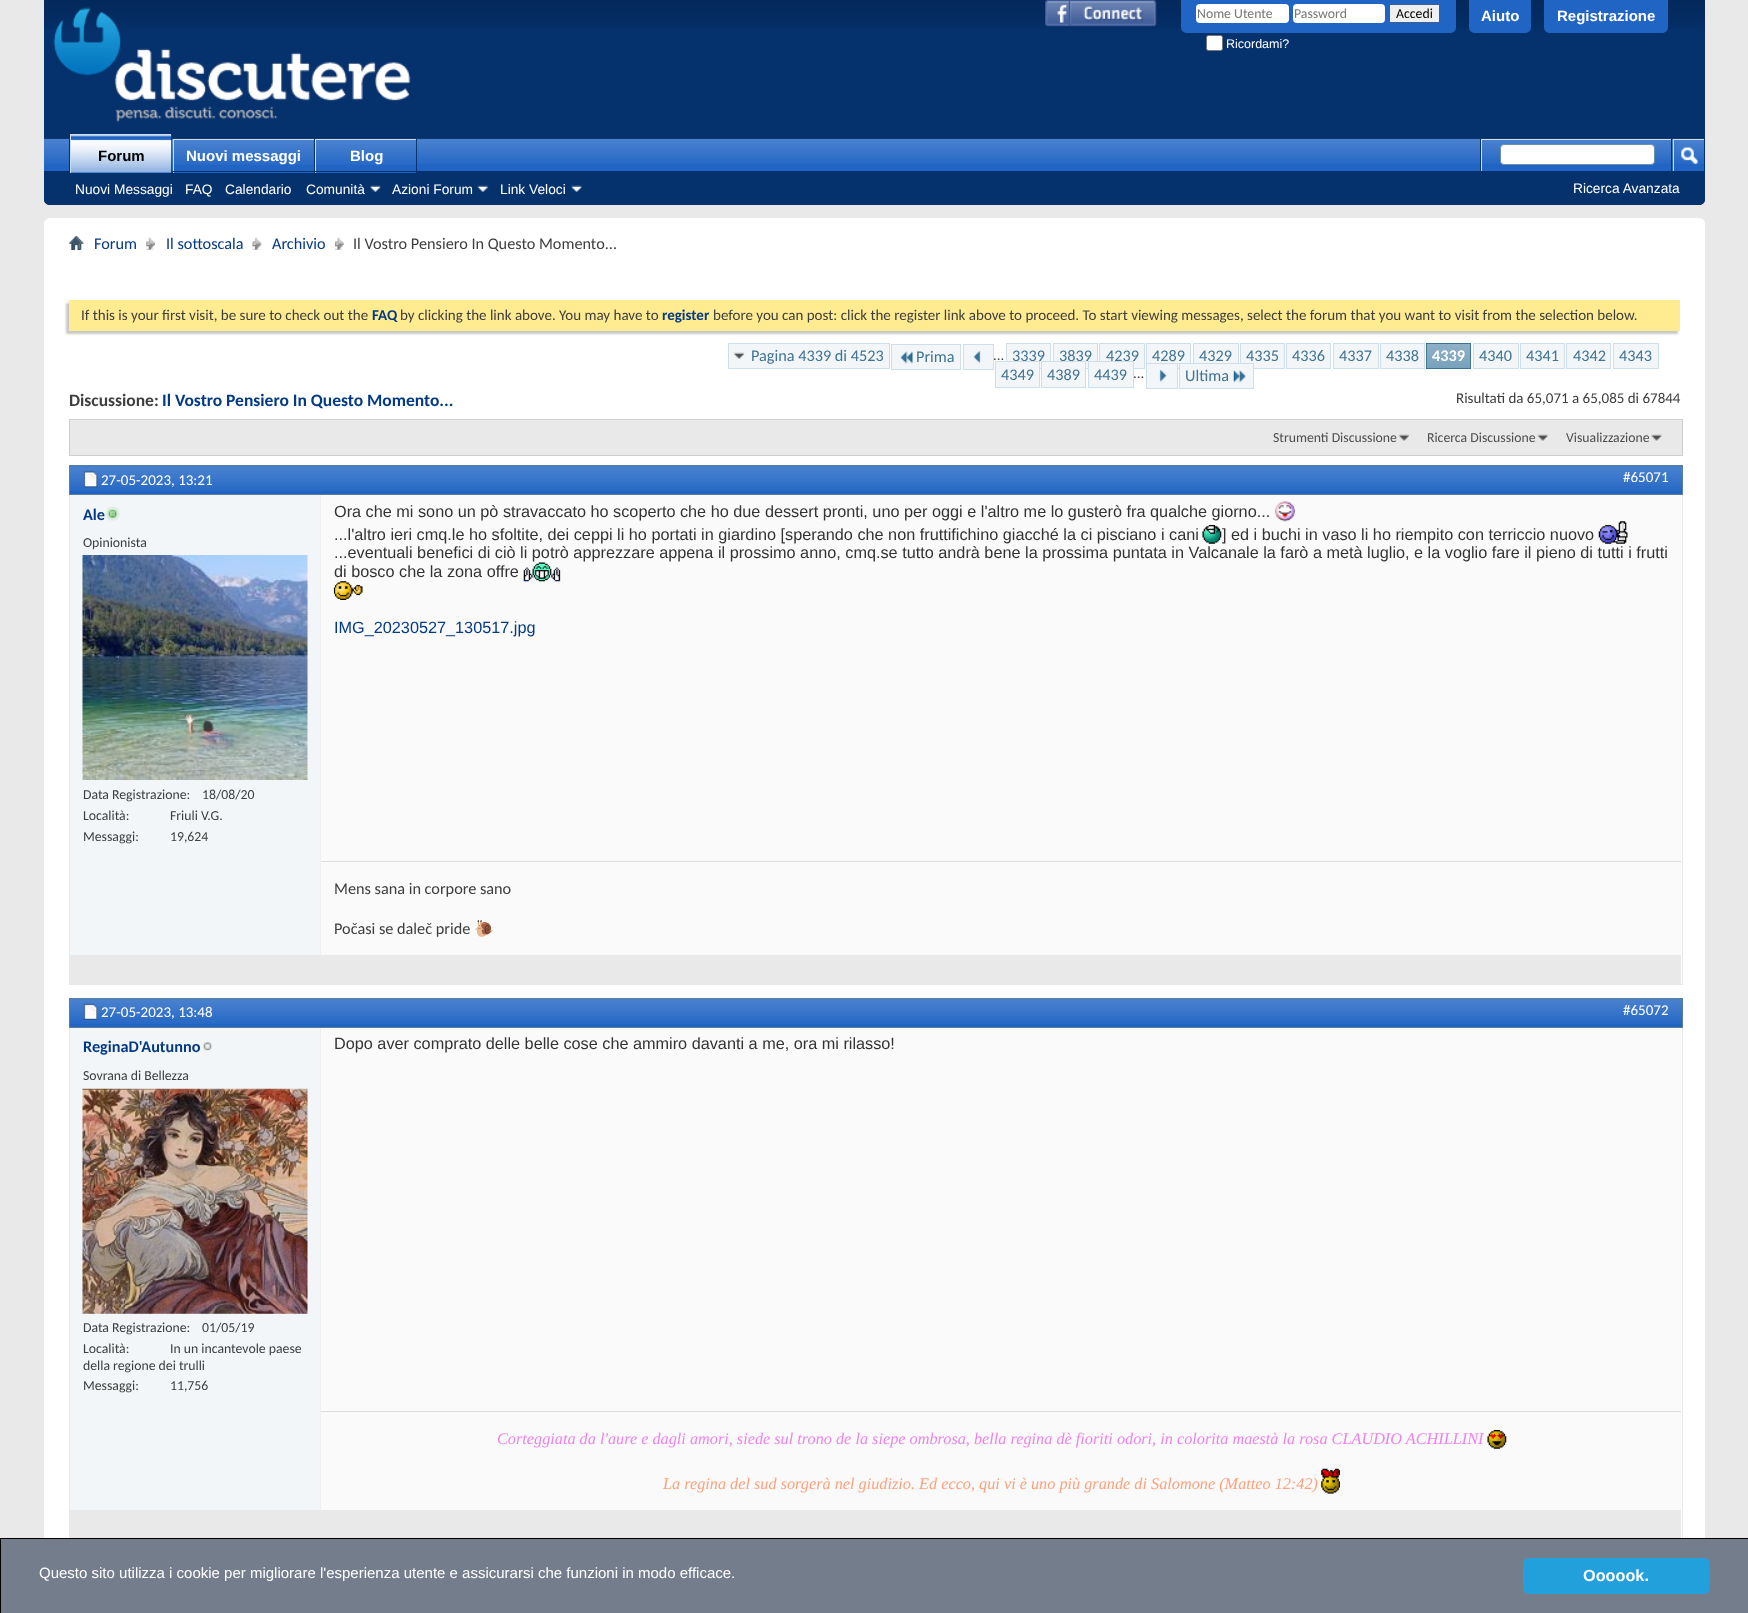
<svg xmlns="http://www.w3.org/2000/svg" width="1748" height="1613">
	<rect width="100%" height="100%" fill="#E9E9E9" />
	<path d="M44 0H1705V199C1705 202.5 1702.5 205 1699 205H50C46.5 205 44 202.5 44 199Z" fill="#05316D" />
	<image x="44" y="0" width="1661" height="29" href="assets/img1.png" />
	<image x="53" y="7" width="358" height="115" href="assets/img2.png" />
	<image x="1045" y="0" width="112" height="27" href="assets/img3.png" />
	<path d="M1181 0H1456V27C1456 30.5 1453.5 33 1450 33H1187C1183.5 33 1181 30.5 1181 27Z" fill="#2165C4" />
	<rect x="1196" y="4" width="93" height="19" rx="4" fill="#FFFFFF" />
	<text x="1197" y="18" font-family="Carlito" font-size="13.75" fill="#777777">Nome Utente</text>
	<rect x="1293" y="4" width="92" height="19" rx="4" fill="#FFFFFF" />
	<text x="1294" y="18" font-family="Carlito" font-size="13.75" fill="#777777">Password</text>
	<rect x="1389.5" y="4.5" width="50" height="18" fill="#EFEFEF" stroke="#415D8D" />
	<text x="1396" y="18" font-family="Carlito" font-size="13.75" fill="#000000">Accedi</text>
	<rect x="1206.5" y="35.5" width="16" height="15" rx="2" fill="#FFFFFF" stroke="#767676" />
	<text x="1226" y="48" font-family="Liberation Sans" font-size="12.5" fill="#FFFFFF">Ricordami?</text>
	<path d="M1469 0H1531V27C1531 30.5 1528.5 33 1525 33H1475C1471.5 33 1469 30.5 1469 27Z" fill="#2165C4" />
	<text x="1481" y="21" font-family="Liberation Sans" font-size="15" font-weight="700" fill="#FFFFFF">Aiuto</text>
	<path d="M1544 0H1668V27C1668 30.5 1665.5 33 1662 33H1550C1546.5 33 1544 30.5 1544 27Z" fill="#2165C4" />
	<text x="1557" y="21" font-family="Liberation Sans" font-size="15" font-weight="700" fill="#FFFFFF">Registrazione</text>
	<path d="M44 139H1705V199C1705 202.5 1702.5 205 1699 205H50C46.5 205 44 202.5 44 199Z" fill="#05316D" />
	<rect x="44" y="139" width="1660" height="32" fill="#2165C4" />
	<image x="44" y="138" width="1661" height="26" href="assets/img4.png" />
	<rect x="171" y="139" width="1" height="32" fill="#05316D" />
	<rect x="69" y="139" width="1" height="32" fill="#05316D" />
	<rect x="71" y="135" width="100" height="38" fill="#2165C4" />
	<image x="71" y="135" width="101" height="38" href="assets/img5.png" />
	<rect x="70" y="134" width="101" height="1" fill="#CEDFEB" />
	<rect x="70" y="134" width="1" height="39" fill="#CEDFEB" />
	<text x="98" y="161" font-family="Liberation Sans" font-size="15" font-weight="700" fill="#000000">Forum</text>
	<rect x="314" y="139" width="1" height="34" fill="#05316D" />
	<rect x="174" y="140" width="140" height="33" fill="#2165C4" />
	<image x="172" y="140" width="142" height="25" href="assets/img6.png" />
	<rect x="173" y="139" width="141" height="1" fill="#CEDFEB" />
	<rect x="173" y="139" width="1" height="34" fill="#CEDFEB" />
	<text x="186" y="161" font-family="Liberation Sans" font-size="15" font-weight="700" fill="#FFFFFF">Nuovi messaggi</text>
	<rect x="416" y="139" width="1" height="34" fill="#05316D" />
	<rect x="316" y="140" width="100" height="33" fill="#2165C4" />
	<image x="316" y="140" width="101" height="25" href="assets/img7.png" />
	<rect x="315" y="139" width="101" height="1" fill="#CEDFEB" />
	<rect x="315" y="139" width="1" height="34" fill="#CEDFEB" />
	<text x="350" y="161" font-family="Liberation Sans" font-size="15" font-weight="700" fill="#FFFFFF">Blog</text>
	<rect x="173" y="171" width="243" height="1" fill="#05316D" />
	<g font-family="Liberation Sans" font-size="13.75" fill="#FFFFFF">
		<text x="75" y="194">Nuovi Messaggi</text>
		<text x="185" y="194">FAQ</text>
		<text x="225" y="194">Calendario</text>
		<text x="306" y="194">Comunità</text>
	</g>
	<image x="370" y="185" width="11" height="7" href="assets/img8.png" />
	<text x="392" y="194" font-family="Liberation Sans" font-size="13.75" fill="#FFFFFF">Azioni Forum</text>
	<image x="477" y="185" width="12" height="7" href="assets/img9.png" />
	<text x="500" y="194" font-family="Liberation Sans" font-size="13.75" fill="#FFFFFF">Link Veloci</text>
	<image x="571" y="185" width="12" height="7" href="assets/img10.png" />
	<rect x="1480" y="139" width="1" height="32" fill="#05316D" />
	<rect x="1481" y="139" width="190" height="1" fill="#CEDFEB" />
	<rect x="1481" y="139" width="1" height="32" fill="#CEDFEB" />
	<rect x="1500.5" y="144.5" width="154" height="20" rx="3.5" fill="#FFFFFF" stroke="#6B91AB" />
	<rect x="1704" y="139" width="1" height="32" fill="#05316D" />
	<rect x="1671" y="139" width="1" height="32" fill="#05316D" />
	<rect x="1673" y="139" width="31" height="1" fill="#CEDFEB" />
	<rect x="1673" y="139" width="1" height="32" fill="#CEDFEB" />
	<image x="1681" y="147" width="17" height="18" href="assets/img11.png" />
	<text x="1573" y="193" font-family="Liberation Sans" font-size="13.75" fill="#FFFFFF">Ricerca Avanzata</text>
	<rect x="44" y="218" width="1661" height="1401" rx="6" fill="#FFFFFF" />
	<image x="68" y="236" width="16" height="14" href="assets/img12.png" />
	<image x="146" y="237" width="9" height="13" href="assets/img13.png" />
	<text x="94" y="249" font-family="Carlito" font-size="16.25" fill="#043A84">Forum</text>
	<image x="252" y="237" width="10" height="13" href="assets/img14.png" />
	<text x="166" y="249" font-family="Carlito" font-size="16.25" fill="#043A84">Il sottoscala</text>
	<image x="335" y="237" width="9" height="13" href="assets/img15.png" />
	<text x="272" y="249" font-family="Carlito" font-size="16.25" fill="#043A84">Archivio</text>
	<text x="353" y="249" font-family="Carlito" font-size="16.25" fill="#3E3E3E">Il Vostro Pensiero In Questo Momento...</text>
	<rect x="66" y="303" width="1612" height="31" fill="#C8C8C8" filter="blur(1px)" />
	<rect x="69" y="300" width="1611" height="31" fill="#FFEB90" />
	<text x="81" y="320" font-family="Carlito" font-size="15" fill="#3E3E3E">If this is your first visit, be sure to check out the</text>
	<text x="372" y="320" font-family="Carlito" font-size="15" font-weight="700" fill="#043A84">FAQ</text>
	<text x="400" y="320" font-family="Carlito" font-size="15" fill="#3E3E3E">by clicking the link above. You may have to</text>
	<text x="662" y="320" font-family="Carlito" font-size="15" font-weight="700" fill="#043A84">register</text>
	<text x="713" y="320" font-family="Carlito" font-size="15" fill="#3E3E3E">before you can post: click the register link above to proceed. To start viewing messages, select the forum that you want to visit from the selection below.</text>
	<text x="69" y="406" font-family="Carlito" font-size="17.5" font-weight="700" fill="#3E3E3E">Discussione:</text>
	<text x="162" y="406" font-family="Carlito" font-size="17.5" font-weight="700" fill="#043A84">Il Vostro Pensiero In Questo Momento...</text>
	<rect x="729" y="344" width="160" height="24" fill="#F2F6F8" />
	<image x="733" y="352" width="12" height="8" href="assets/img16.png" />
	<rect x="728.5" y="343.5" width="161" height="25" fill="none" stroke="#CEDFEB" />
	<text x="751" y="361" font-family="Carlito" font-size="16.25" fill="#417394">Pagina 4339 di 4523</text>
	<rect x="892" y="345" width="68" height="24" fill="#F2F6F8" />
	<image x="900" y="351" width="13" height="13" href="assets/img17.png" />
	<text x="916" y="362" font-family="Carlito" font-size="16.25" fill="#417394">Prima</text>
	<rect x="891" y="344" width="70" height="1" fill="#CEDFEB" />
	<rect x="891" y="369" width="25" height="1" fill="#CEDFEB" />
	<rect x="891" y="344" width="1" height="26" fill="#CEDFEB" />
	<rect x="960" y="344" width="1" height="26" fill="#CEDFEB" />
	<rect x="916" y="369" width="45" height="1" fill="#CEDFEB" />
	<rect x="963.5" y="344.5" width="30" height="25" fill="#F2F6F8" stroke="#CEDFEB" />
	<image x="973" y="351" width="8" height="12" href="assets/img18.png" />
	<text x="993" y="360" font-family="Carlito" font-size="15" fill="#3E3E3E">...</text>
	<rect x="1006.5" y="343.5" width="44" height="25" fill="#F2F6F8" stroke="#CEDFEB" />
	<text x="1012" y="361" font-family="Carlito" font-size="16.25" fill="#417394">3339</text>
	<rect x="1053.5" y="343.5" width="44" height="25" fill="#F2F6F8" stroke="#CEDFEB" />
	<text x="1059" y="361" font-family="Carlito" font-size="16.25" fill="#417394">3839</text>
	<rect x="1099.5" y="343.5" width="45" height="25" fill="#F2F6F8" stroke="#CEDFEB" />
	<text x="1106" y="361" font-family="Carlito" font-size="16.25" fill="#417394">4239</text>
	<rect x="1146.5" y="343.5" width="44" height="25" fill="#F2F6F8" stroke="#CEDFEB" />
	<text x="1152" y="361" font-family="Carlito" font-size="16.25" fill="#417394">4289</text>
	<rect x="1194" y="344" width="44" height="19" fill="#F2F6F8" />
	<rect x="1193.5" y="343.5" width="45" height="25" fill="none" stroke="#CEDFEB" />
	<text x="1199" y="361" font-family="Carlito" font-size="16.25" fill="#417394">4329</text>
	<rect x="1240.5" y="343.5" width="44" height="25" fill="#F2F6F8" stroke="#CEDFEB" />
	<text x="1246" y="361" font-family="Carlito" font-size="16.25" fill="#417394">4335</text>
	<rect x="1286.5" y="343.5" width="44" height="25" fill="#F2F6F8" stroke="#CEDFEB" />
	<text x="1292" y="361" font-family="Carlito" font-size="16.25" fill="#417394">4336</text>
	<rect x="1333.5" y="343.5" width="45" height="25" fill="#F2F6F8" stroke="#CEDFEB" />
	<text x="1339" y="361" font-family="Carlito" font-size="16.25" fill="#417394">4337</text>
	<rect x="1380.5" y="343.5" width="44" height="25" fill="#F2F6F8" stroke="#CEDFEB" />
	<text x="1386" y="361" font-family="Carlito" font-size="16.25" fill="#417394">4338</text>
	<rect x="1427" y="344" width="43" height="24" fill="#759FBB" />
	<image x="1427" y="344" width="43" height="24" href="assets/img19.png" />
	<rect x="1426.5" y="343.5" width="44" height="25" fill="none" stroke="#417394" />
	<text x="1432" y="361" font-family="Carlito" font-size="16.25" font-weight="700" fill="#FFFFFF">4339</text>
	<rect x="1473.5" y="343.5" width="45" height="25" fill="#F2F6F8" stroke="#CEDFEB" />
	<text x="1479" y="361" font-family="Carlito" font-size="16.25" fill="#417394">4340</text>
	<rect x="1520.5" y="343.5" width="44" height="25" fill="#F2F6F8" stroke="#CEDFEB" />
	<text x="1526" y="361" font-family="Carlito" font-size="16.25" fill="#417394">4341</text>
	<rect x="1566.5" y="343.5" width="44" height="25" fill="#F2F6F8" stroke="#CEDFEB" />
	<text x="1573" y="361" font-family="Carlito" font-size="16.25" fill="#417394">4342</text>
	<rect x="1613.5" y="343.5" width="45" height="25" fill="#F2F6F8" stroke="#CEDFEB" />
	<text x="1619" y="361" font-family="Carlito" font-size="16.25" fill="#417394">4343</text>
	<rect x="995.5" y="361.5" width="44" height="26" fill="#F2F6F8" stroke="#CEDFEB" />
	<text x="1001" y="380" font-family="Carlito" font-size="16.25" fill="#417394">4349</text>
	<rect x="1041.5" y="361.5" width="44" height="26" fill="#F2F6F8" stroke="#CEDFEB" />
	<text x="1047" y="380" font-family="Carlito" font-size="16.25" fill="#417394">4389</text>
	<rect x="1088.5" y="361.5" width="45" height="26" fill="#F2F6F8" stroke="#CEDFEB" />
	<text x="1094" y="380" font-family="Carlito" font-size="16.25" fill="#417394">4439</text>
	<text x="1133" y="378" font-family="Carlito" font-size="15" fill="#3E3E3E">...</text>
	<rect x="1147" y="368" width="30" height="20" fill="#F2F6F8" />
	<rect x="1146.5" y="363.5" width="31" height="25" fill="none" stroke="#CEDFEB" />
	<image x="1159" y="369" width="8" height="13" href="assets/img20.png" />
	<rect x="1180" y="364" width="73" height="24" fill="#F2F6F8" />
	<text x="1185" y="381" font-family="Carlito" font-size="16.25" fill="#417394">Ultima</text>
	<rect x="1179" y="363" width="75" height="1" fill="#CEDFEB" />
	<rect x="1179" y="388" width="50" height="1" fill="#CEDFEB" />
	<rect x="1179" y="363" width="1" height="26" fill="#CEDFEB" />
	<rect x="1253" y="363" width="1" height="26" fill="#CEDFEB" />
	<rect x="1229" y="388" width="25" height="1" fill="#CEDFEB" />
	<image x="1233" y="370" width="13" height="13" href="assets/img21.png" />
	<text x="1456" y="403" font-family="Carlito" font-size="15" fill="#3E3E3E">Risultati da 65,071 a 65,085 di 67844</text>
	<rect x="70" y="421" width="1612" height="34" fill="#E9E9E9" />
	<rect x="69" y="420" width="1613" height="1" fill="#EDEDED" />
	<rect x="69.5" y="419.5" width="1613" height="36" fill="none" stroke="#CECECE" />
	<image x="1398" y="434" width="12" height="8" href="assets/img22.png" />
	<text x="1273" y="442" font-family="Carlito" font-size="13.75" fill="#4E4E4E">Strumenti Discussione</text>
	<image x="1537" y="434" width="12" height="8" href="assets/img23.png" />
	<text x="1427" y="442" font-family="Carlito" font-size="13.75" fill="#4E4E4E">Ricerca Discussione</text>
	<image x="1651" y="434" width="11" height="8" href="assets/img24.png" />
	<text x="1566" y="442" font-family="Carlito" font-size="13.75" fill="#4E4E4E">Visualizzazione</text>
	<rect x="69.5" y="465.5" width="1613" height="519" fill="none" stroke="#E9E9E9" />
	<rect x="70" y="466" width="1612" height="28" fill="#2165C4" />
	<image x="70" y="466" width="1612" height="25" href="assets/img25.png" />
	<rect x="69.5" y="465.5" width="1613" height="29" fill="none" stroke="#5A7F97" />
	<image x="83" y="471" width="15" height="17" href="assets/img26.png" />
	<g font-family="Carlito" font-size="15" fill="#FFFFFF">
		<text x="101" y="485">27-05-2023, 13:21</text>
		<text x="1623" y="482">#65071</text>
	</g>
	<rect x="70" y="495" width="250" height="460" fill="#F2F6F8" />
	<text x="83" y="520" font-family="Carlito" font-size="16.25" font-weight="700" fill="#043A84">Ale</text>
	<image x="105" y="506" width="15" height="15" href="assets/img27.png" />
	<text x="83" y="547" font-family="Carlito" font-size="13.75" fill="#3E3E3E">Opinionista</text>
	<image x="82" y="555" width="226" height="225" href="assets/img28.png" />
	<g font-family="Carlito" font-size="13.75" fill="#3E3E3E">
		<text x="83" y="799">Data Registrazione:</text>
		<text x="202" y="799">18/08/20</text>
		<text x="83" y="820">Località:</text>
		<text x="170" y="820">Friuli V.G.</text>
		<text x="83" y="841">Messaggi:</text>
		<text x="170" y="841">19,624</text>
	</g>
	<rect x="321" y="495" width="1360" height="460" fill="#FAFAFA" />
	<rect x="320" y="495" width="1" height="460" fill="#EFEFEF" />
	<text x="334" y="517" font-family="Liberation Sans" font-size="16.25" fill="#333333">Ora che mi sono un pò stravaccato ho scoperto che ho due dessert pronti, uno per oggi e l'altro me lo gusterò fra qualche giorno...</text>
	<image x="1275" y="501" width="20" height="21" href="assets/img29.png" />
	<text x="334" y="540" font-family="Liberation Sans" font-size="16.25" fill="#333333">...l'altro ieri cmq.le ho sfoltite, dei ceppi li ho portati in giardino [sperando che non fruttifichino giacché la ci pisciano i cani</text>
	<image x="1202" y="525" width="20" height="19" href="assets/img30.png" />
	<text x="1222" y="540" font-family="Liberation Sans" font-size="16.25" fill="#333333">] ed i buchi in vaso li ho riempito con terriccio nuovo</text>
	<image x="1598" y="521" width="30" height="23" href="assets/img31.png" />
	<g font-family="Liberation Sans" font-size="16.25" fill="#333333">
		<text x="334" y="558">...eventuali benefici di ciò li potrò apprezzare appena il prossimo anno, cmq.se tutto andrà bene la prossima puntata in Valcanale la farò a metà luglio, e la voglio fare il pieno di tutti i frutti</text>
		<text x="334" y="577">di bosco che la zona offre</text>
	</g>
	<image x="523" y="562" width="38" height="20" href="assets/img32.png" />
	<image x="333" y="581" width="30" height="19" href="assets/img33.png" />
	<text x="334" y="633" font-family="Liberation Sans" font-size="16.25" fill="#043A84">IMG_20230527_130517.jpg</text>
	<rect x="321" y="861" width="1360" height="1" fill="#DDDDDD" />
	<g font-family="Carlito" font-size="16.25" fill="#3E3E3E">
		<text x="334" y="894">Mens sana in corpore sano</text>
		<text x="334" y="934">Počasi se daleč pride</text>
	</g>
	<text x="474" y="934" font-family="Noto Color Emoji" font-size="16.25" fill="#3E3E3E">🐌</text>
	<rect x="70" y="955" width="1611" height="29" fill="#E9E9E9" />
	<rect x="69.5" y="998.5" width="1613" height="541" fill="none" stroke="#E9E9E9" />
	<rect x="70" y="999" width="1612" height="28" fill="#2165C4" />
	<image x="70" y="999" width="1612" height="25" href="assets/img34.png" />
	<rect x="69.5" y="998.5" width="1613" height="29" fill="none" stroke="#5A7F97" />
	<image x="83" y="1003" width="15" height="17" href="assets/img35.png" />
	<g font-family="Carlito" font-size="15" fill="#FFFFFF">
		<text x="101" y="1017">27-05-2023, 13:48</text>
		<text x="1623" y="1015">#65072</text>
	</g>
	<rect x="70" y="1028" width="250" height="482" fill="#F2F6F8" />
	<text x="83" y="1052" font-family="Carlito" font-size="16.25" font-weight="700" fill="#043A84">ReginaD'Autunno</text>
	<image x="203" y="1042" width="9" height="9" href="assets/img36.png" />
	<text x="83" y="1080" font-family="Carlito" font-size="13.75" fill="#3E3E3E">Sovrana di Bellezza</text>
	<image x="82" y="1088" width="226" height="226" href="assets/img37.png" />
	<g font-family="Carlito" font-size="13.75" fill="#3E3E3E">
		<text x="83" y="1332">Data Registrazione:</text>
		<text x="202" y="1332">01/05/19</text>
		<text x="83" y="1353">Località:</text>
		<text x="170" y="1353">In un incantevole paese</text>
		<text x="83" y="1370">della regione dei trulli</text>
		<text x="83" y="1390">Messaggi:</text>
		<text x="170" y="1390">11,756</text>
	</g>
	<rect x="321" y="1028" width="1360" height="482" fill="#FAFAFA" />
	<rect x="320" y="1028" width="1" height="482" fill="#EFEFEF" />
	<text x="334" y="1049" font-family="Liberation Sans" font-size="16.25" fill="#333333">Dopo aver comprato delle belle cose che ammiro davanti a me, ora mi rilasso!</text>
	<rect x="321" y="1411" width="1360" height="1" fill="#DDDDDD" />
	<text x="497" y="1444" font-family="Liberation Serif" font-size="16.25" font-style="italic" fill="#EE82EE">Corteggiata da l'aure e dagli amori, siede sul trono de la siepe ombrosa, bella regina dè fioriti odori, in colorita maestà la rosa CLAUDIO ACHILLINI</text>
	<image x="1487" y="1430" width="20" height="19" href="assets/img38.png" />
	<text x="663" y="1489" font-family="Liberation Serif" font-size="16.25" font-style="italic" fill="#FFA07A">La regina del sud sorgerà nel giudizio. Ed ecco, qui vi è uno più grande di Salomone (Matteo 12:42)</text>
	<image x="1321" y="1468" width="19" height="26" href="assets/img39.png" />
	<rect x="70" y="1510" width="1611" height="28" fill="#E9E9E9" />
	<rect x="0.5" y="1538.5" width="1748" height="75" fill="#747D8C" stroke="#000000" />
	<text x="39" y="1578" font-family="Liberation Sans" font-size="15" fill="#FFFFFF">Questo sito utilizza i cookie per migliorare l'esperienza utente e assicurarsi che funzioni in modo efficace.</text>
	<rect x="1523" y="1558" width="187" height="36" rx="6" fill="#21A0DB" />
	<text x="1583" y="1581" font-family="Liberation Sans" font-size="16.25" font-weight="700" fill="#FFFFFF">Oooook.</text>
</svg>
